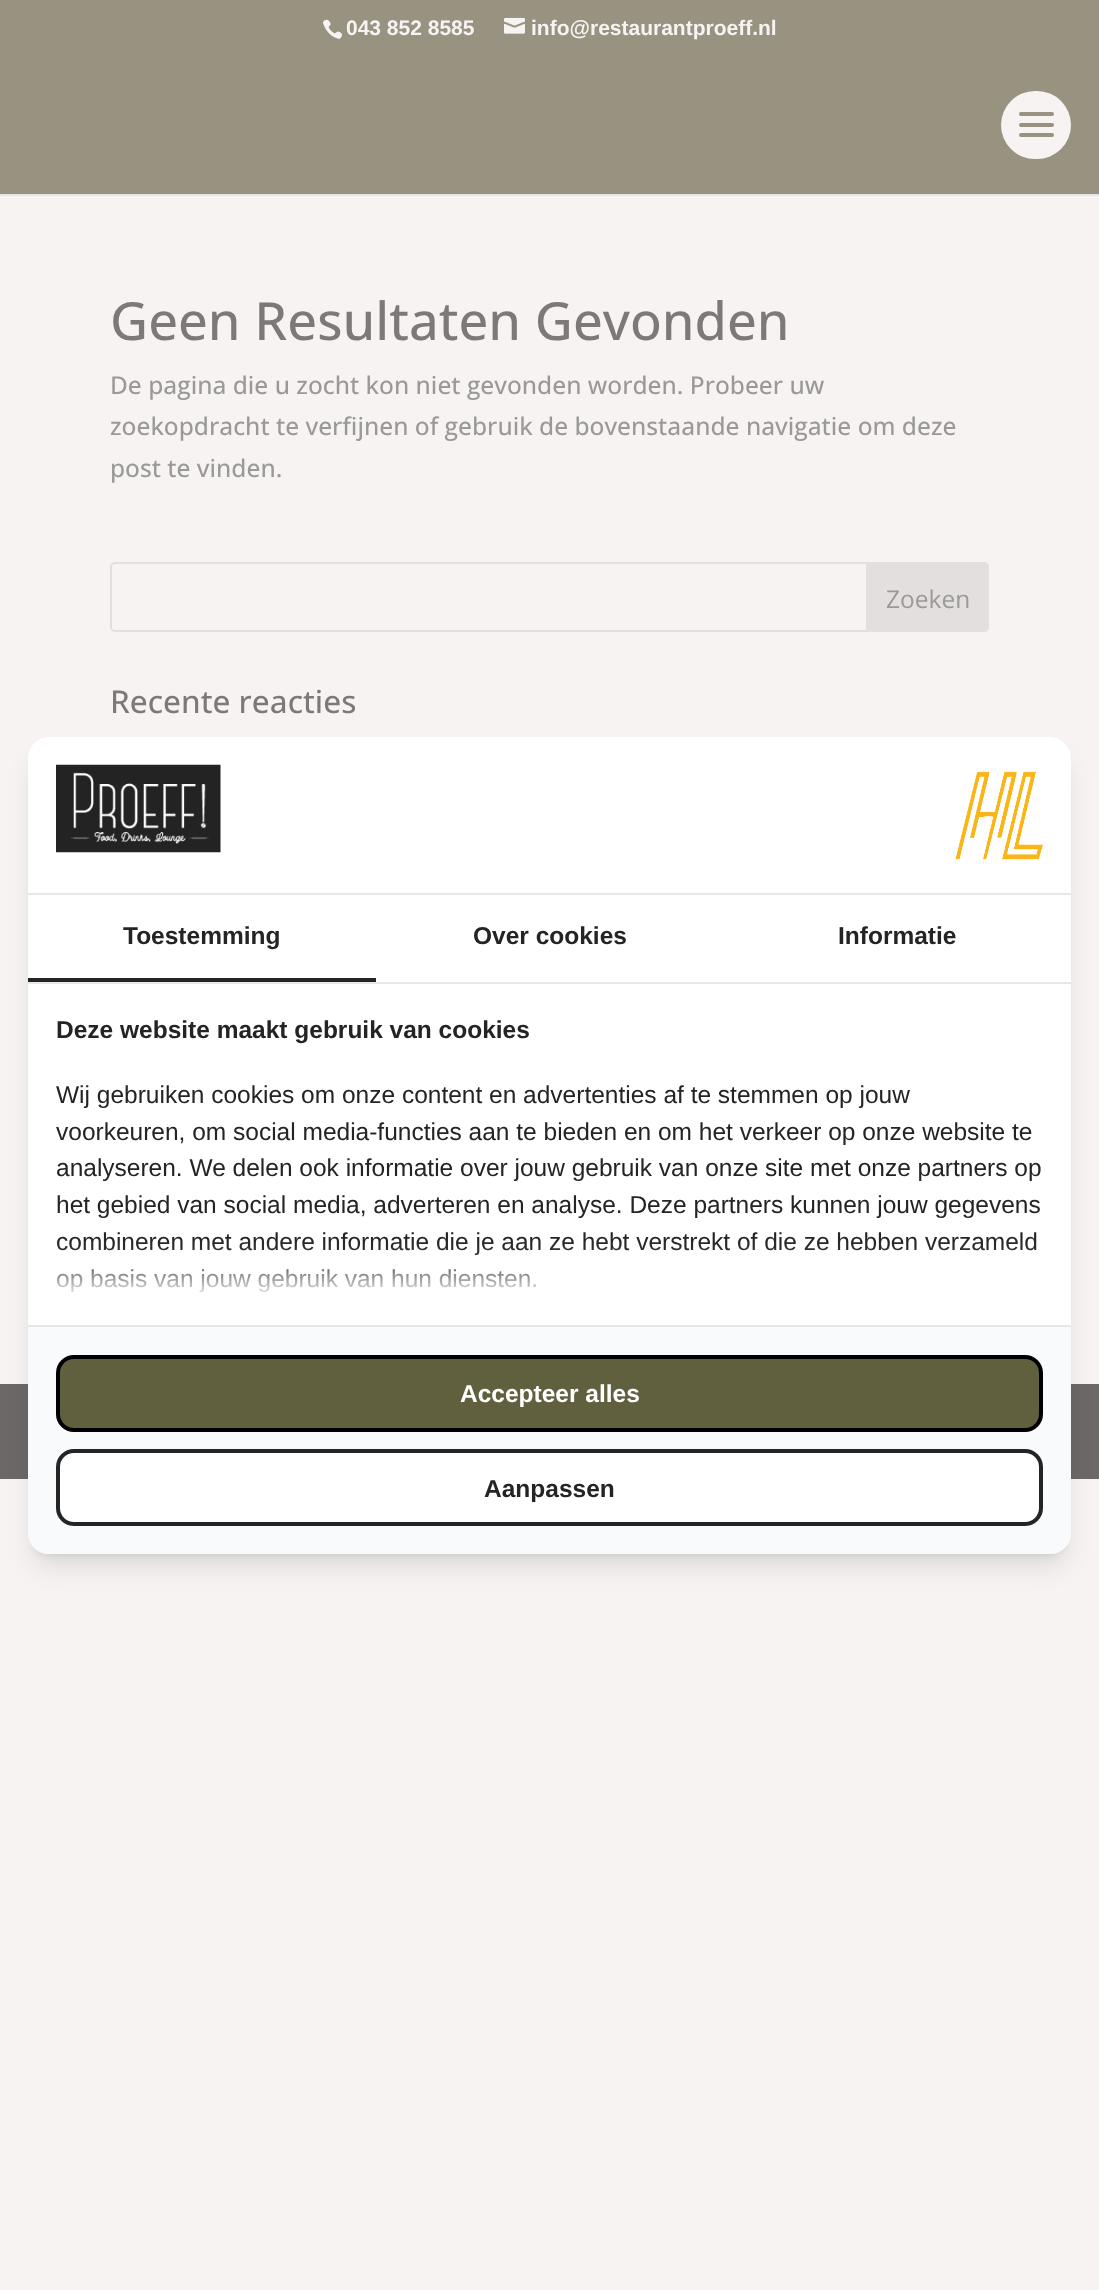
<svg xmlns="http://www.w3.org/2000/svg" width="1099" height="2290">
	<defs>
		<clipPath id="clip1"><rect x="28" y="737" width="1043" height="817" rx="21" /></clipPath>
	</defs>
	<rect width="100%" height="100%" fill="#F7F3F3" />
	<rect x="0" y="194" width="1099" height="2" fill="#E8E4E4" />
	<rect x="0" y="0" width="1099" height="194" fill="#989380" />
	<rect x="1001" y="91" width="70" height="68" rx="34" fill="#F7F3F3" />
	<rect x="1019" y="123" width="35" height="4" rx="2" fill="#989380" />
	<rect x="1019" y="112" width="35" height="4" rx="2" fill="#989380" />
	<rect x="1019" y="133" width="35" height="4" rx="2" fill="#989380" />
	<image x="322" y="19" width="21" height="20" href="assets/img1.png" />
	<text x="346" y="35" font-family="Liberation Sans" font-size="21" font-weight="700" fill="#F7F3F3">043 852 8585</text>
	<image x="504" y="17" width="21" height="17" href="assets/img2.png" />
	<text x="531" y="35" font-family="Liberation Sans" font-size="21" font-weight="700" fill="#F7F3F3">info@restaurantproeff.nl</text>
	<text x="110" y="340" font-family="Open Sans" font-size="52.5" font-weight="500" fill="#7D7979">Geen Resultaten Gevonden</text>
	<g font-family="Open Sans" font-size="24.5" font-weight="500" fill="#9B9898">
		<text x="110" y="394">De pagina die u zocht kon niet gevonden worden. Probeer uw</text>
		<text x="110" y="435">zoekopdracht te verfijnen of gebruik de bovenstaande navigatie om deze</text>
		<text x="110" y="477">post te vinden.</text>
	</g>
	<rect x="111" y="563" width="877" height="68" rx="4" fill="none" stroke="#E3DFDF" stroke-width="2" />
	<path d="M867 563H984C986 563 988 565 988 567V627C988 629 986 631 984 631H867Z" fill="#E3DFDF" stroke="#E3DFDF" stroke-width="2" />
	<text x="886" y="608" font-family="Open Sans" font-size="24.5" fill="#9B9898">Zoeken</text>
	<text x="110" y="713" font-family="Open Sans" font-size="31.5" font-weight="500" fill="#7D7979">Recente reacties</text>
	<rect x="0" y="1384" width="1099" height="95" fill="#6C6868" />
	<rect x="35" y="751" width="1029" height="803" rx="14" fill="#000000" fill-opacity="0.1" filter="blur(5px)" />
	<rect x="33" y="760" width="1033" height="806" rx="16" fill="#000000" fill-opacity="0.1" filter="blur(13px)" />
	<rect x="28" y="737" width="1043" height="817" rx="21" fill="#FFFFFF" />
	<rect x="28" y="893" width="1043" height="2" fill="#E5E7EB" />
	<image x="56" y="764" width="165" height="89" href="assets/img3.png" />
	<image x="955" y="771" width="88" height="89" href="assets/img4.png" />
	<rect x="28" y="982" width="1043" height="2" fill="#E5E7EB" />
	<rect x="28" y="978" width="348" height="4" fill="#242424" />
	<g font-family="Liberation Sans" font-size="24.5" font-weight="700" fill="#242424">
		<text x="123" y="944">Toestemming</text>
		<text x="473" y="944">Over cookies</text>
		<text x="838" y="944">Informatie</text>
		<text x="56" y="1038">Deze website maakt gebruik van cookies</text>
	</g>
	<g font-family="Liberation Sans" font-size="24.5" fill="#242424">
		<text x="56" y="1103">Wij gebruiken cookies om onze content en advertenties af te stemmen op jouw</text>
		<text x="56" y="1140">voorkeuren, om social media-functies aan te bieden en om het verkeer op onze website te</text>
		<text x="56" y="1176">analyseren. We delen ook informatie over jouw gebruik van onze site met onze partners op</text>
		<text x="56" y="1213">het gebied van social media, adverteren en analyse. Deze partners kunnen jouw gegevens</text>
		<text x="56" y="1250">combineren met andere informatie die je aan ze hebt verstrekt of die ze hebben verzameld</text>
		<text x="56" y="1287">op basis van jouw gebruik van hun diensten.</text>
	</g>
	<g clip-path="url(#clip1)">
		<rect x="14" y="1276" width="1071" height="257" fill="#FFFFFF" filter="blur(17.5px)" />
	</g>
	<path d="M28 1325H1071V1533C1071 1544.5 1061.5 1554 1050 1554H49C37.5 1554 28 1544.5 28 1533Z" fill="#F9FAFB" />
	<rect x="28" y="1325" width="1043" height="2" fill="#E5E7EB" />
	<rect x="58" y="1357" width="983" height="73" rx="16" fill="#605F3E" stroke="#000000" stroke-width="4" />
	<text x="460" y="1402" font-family="Liberation Sans" font-size="24.5" font-weight="700" fill="#FFFFFF">Accepteer alles</text>
	<rect x="58" y="1451" width="983" height="73" rx="16" fill="#FFFFFF" stroke="#242424" stroke-width="4" />
	<text x="484" y="1497" font-family="Liberation Sans" font-size="24.5" font-weight="700" fill="#242424">Aanpassen</text>
</svg>
